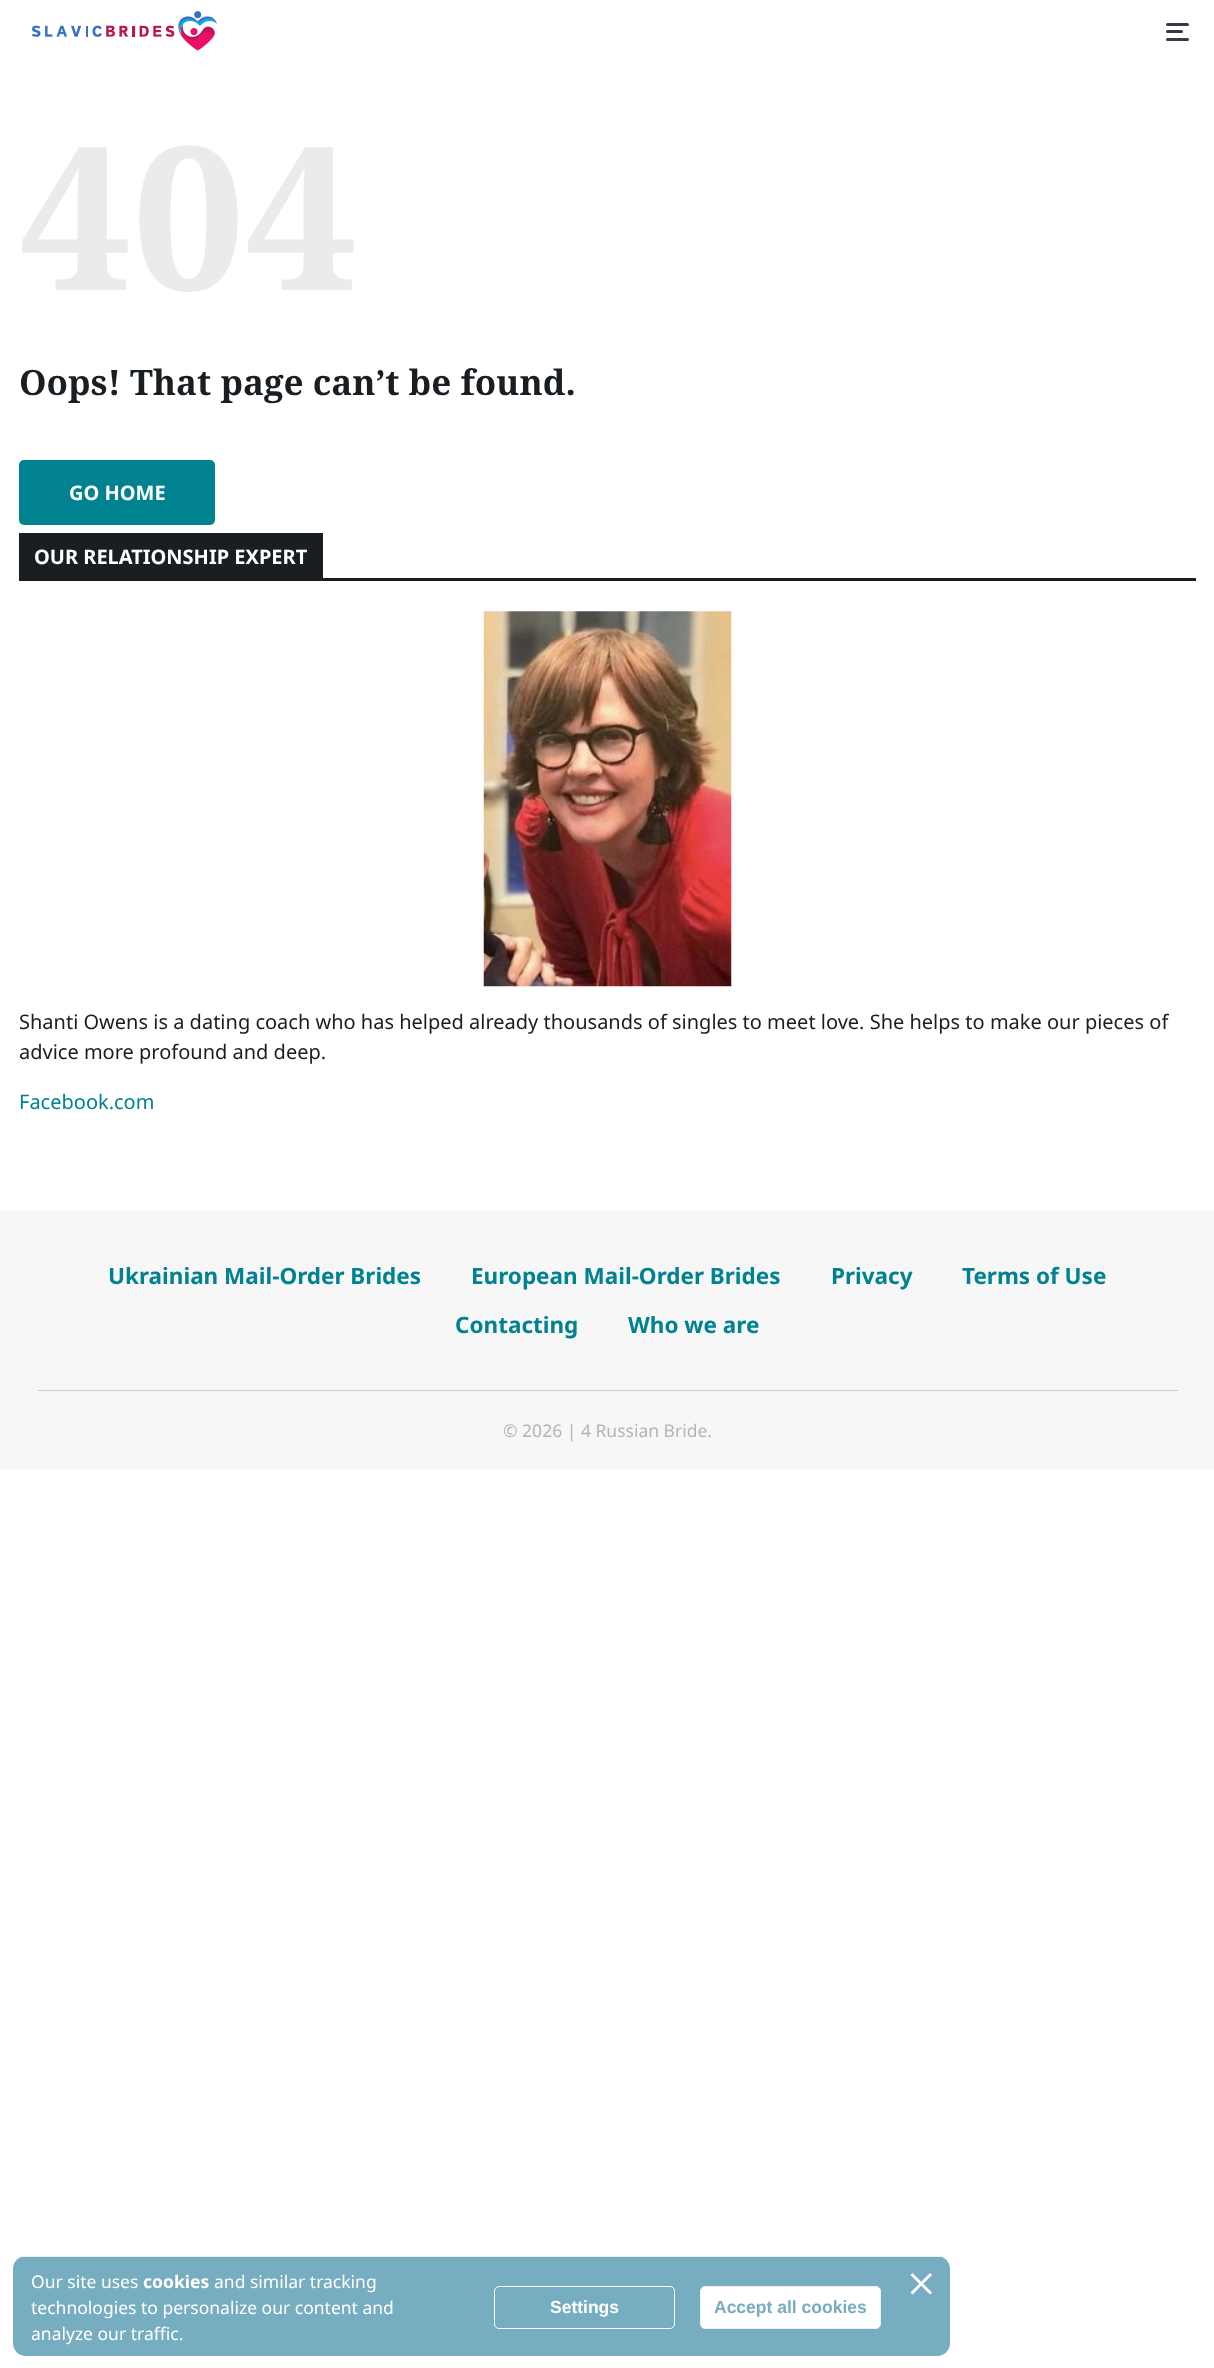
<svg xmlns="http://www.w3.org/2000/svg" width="1214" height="2368">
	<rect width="100%" height="100%" fill="#FFFFFF" />
	<image x="32" y="11" width="185" height="40" href="assets/img1.png" />
	<rect x="1166" y="23" width="23" height="3" rx="1.5" fill="#363B43" />
	<rect x="1166" y="30" width="17" height="3" rx="1.5" fill="#363B43" />
	<rect x="1166" y="38" width="23" height="3" rx="1.5" fill="#363B43" />
	<text x="19" y="290" font-family="Noto Serif" font-size="200" font-weight="700" fill="#EAEBEC">404</text>
	<text x="19" y="395" font-family="Noto Serif" font-size="35" font-weight="700" fill="#191E23">Oops! That page can’t be found.</text>
	<rect x="19" y="460" width="196" height="65" rx="5" fill="#008291" />
	<text x="69" y="500" font-family="Noto Sans" font-size="20" font-weight="700" fill="#FFFFFF">GO HOME</text>
	<rect x="19" y="533" width="304" height="45" fill="#191E23" />
	<text x="34" y="564" font-family="Noto Sans" font-size="20" font-weight="700" fill="#FFFFFF">OUR RELATIONSHIP EXPERT</text>
	<rect x="19" y="578" width="1177" height="3" fill="#191E23" />
	<image x="483" y="611" width="249" height="376" href="assets/img2.png" />
	<g font-family="Noto Sans" font-size="20" fill="#191E23">
		<text x="19" y="1029">Shanti Owens is a dating coach who has helped already thousands of singles to meet love. She helps to make our pieces of</text>
		<text x="19" y="1059">advice more profound and deep.</text>
	</g>
	<text x="19" y="1109" font-family="Noto Sans" font-size="20" fill="#008291">Facebook.com</text>
	<rect x="0" y="1211" width="1214" height="258" fill="#F7F7F7" />
	<rect x="38" y="1390" width="1140" height="1" fill="#CCCCCC" />
	<g font-family="Noto Sans" font-size="22.5" font-weight="700" fill="#008291">
		<text x="108" y="1284">Ukrainian Mail-Order Brides</text>
		<text x="471" y="1284">European Mail-Order Brides</text>
		<text x="831" y="1284">Privacy</text>
		<text x="962" y="1284">Terms of Use</text>
		<text x="455" y="1333">Contacting</text>
		<text x="628" y="1333">Who we are</text>
	</g>
	<text x="503" y="1437" font-family="Noto Sans" font-size="17.5" fill="#B4B4B4">© 2026 | 4 Russian Bride.</text>
	<rect x="13" y="2256" width="937" height="100" rx="13" fill="#76ADC1" />
	<rect x="19" y="2256" width="925" height="1" fill="#EFEFEF" />
	<text x="31" y="2288" font-family="Noto Sans" font-size="17.5" fill="#FFFFFF">Our site uses</text>
	<text x="143" y="2288" font-family="Noto Sans" font-size="17.5" font-weight="700" fill="#FFFFFF">cookies</text>
	<g font-family="Noto Sans" font-size="17.5" fill="#FFFFFF">
		<text x="214" y="2288">and similar tracking</text>
		<text x="31" y="2314">technologies to personalize our content and</text>
		<text x="31" y="2340">analyze our traffic.</text>
	</g>
	<rect x="494.5" y="2286.5" width="180" height="42" rx="4.5" fill="none" stroke="#FFFFFF" />
	<text x="550" y="2313" font-family="Liberation Sans" font-size="17.5" font-weight="700" fill="#FFFFFF">Settings</text>
	<rect x="700.5" y="2286.5" width="180" height="42" rx="4.5" fill="#FFFFFF" stroke="#EFEFEF" />
	<text x="714" y="2313" font-family="Liberation Sans" font-size="17.5" font-weight="700" fill="#76ADC1">Accept all cookies</text>
	<path d="M930 2273L932 2275L912.5 2294.5L910.5 2292.5Z" fill="#FFFFFF" />
	<path d="M910.5 2275L912.5 2273L932 2292.5L930 2294.5Z" fill="#FFFFFF" />
</svg>
